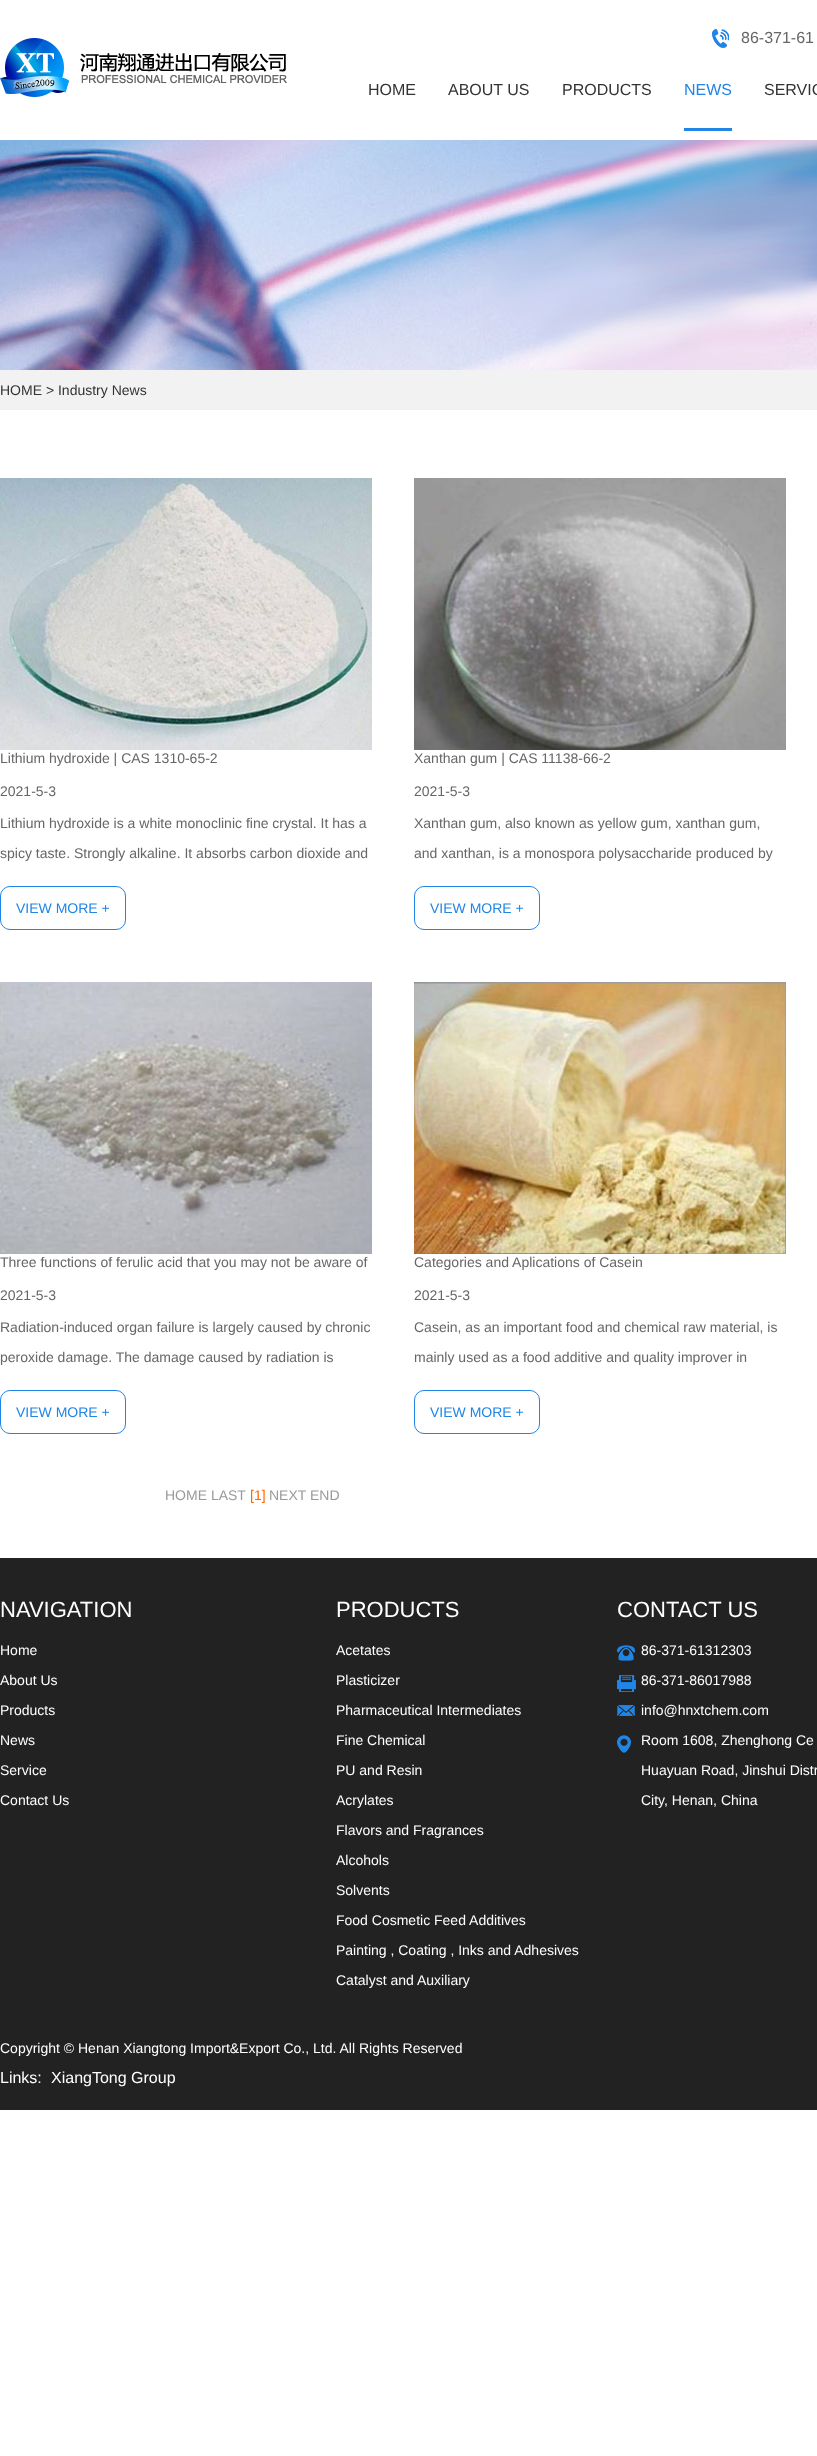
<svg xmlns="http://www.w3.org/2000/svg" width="817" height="2456">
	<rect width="100%" height="100%" fill="#FFFFFF" />
	<image x="0" y="38" width="287" height="59" href="assets/img1.png" />
	<image x="712" y="29" width="17" height="19" href="assets/img2.png" />
	<text x="741" y="43" font-family="Liberation Sans" font-size="16" fill="#666666">86-371-61</text>
	<g font-family="Liberation Sans" font-size="16" fill="#333333">
		<text x="368" y="95">HOME</text>
		<text x="448" y="95">ABOUT US</text>
		<text x="562" y="95">PRODUCTS</text>
	</g>
	<text x="684" y="95" font-family="Liberation Sans" font-size="16" fill="#2085E4">NEWS</text>
	<rect x="684" y="128" width="48" height="3" fill="#2085E4" />
	<text x="764" y="95" font-family="Liberation Sans" font-size="16" fill="#333333">SERVIC</text>
	<image x="0" y="140" width="817" height="230" href="assets/img3.png" />
	<rect x="0" y="370" width="817" height="40" fill="#F2F2F2" />
	<text x="0" y="395" font-family="Liberation Sans" font-size="14" fill="#333333">HOME &gt; Industry News</text>
	<image x="0" y="478" width="372" height="272" href="assets/img4.png" />
	<g font-family="Liberation Sans" font-size="14" fill="#666666">
		<text x="0" y="763">Lithium hydroxide | CAS 1310-65-2</text>
		<text x="0" y="796">2021-5-3</text>
		<text x="0" y="828">Lithium hydroxide is a white monoclinic fine crystal. It has a</text>
		<text x="0" y="858">spicy taste. Strongly alkaline. It absorbs carbon dioxide and</text>
	</g>
	<rect x="0.5" y="886.5" width="125" height="43" rx="9.5" fill="none" stroke="#2085E4" />
	<text x="16" y="913" font-family="Liberation Sans" font-size="14" fill="#2085E4">VIEW MORE +</text>
	<image x="414" y="478" width="372" height="272" href="assets/img5.png" />
	<g font-family="Liberation Sans" font-size="14" fill="#666666">
		<text x="414" y="763">Xanthan gum | CAS 11138-66-2</text>
		<text x="414" y="796">2021-5-3</text>
		<text x="414" y="828">Xanthan gum, also known as yellow gum, xanthan gum,</text>
		<text x="414" y="858">and xanthan, is a monospora polysaccharide produced by</text>
	</g>
	<rect x="414.5" y="886.5" width="125" height="43" rx="9.5" fill="none" stroke="#2085E4" />
	<text x="430" y="913" font-family="Liberation Sans" font-size="14" fill="#2085E4">VIEW MORE +</text>
	<image x="0" y="982" width="372" height="272" href="assets/img6.png" />
	<g font-family="Liberation Sans" font-size="14" fill="#666666">
		<text x="0" y="1267">Three functions of ferulic acid that you may not be aware of</text>
		<text x="0" y="1300">2021-5-3</text>
		<text x="0" y="1332">Radiation-induced organ failure is largely caused by chronic</text>
		<text x="0" y="1362">peroxide damage. The damage caused by radiation is</text>
	</g>
	<rect x="0.5" y="1390.5" width="125" height="43" rx="9.5" fill="none" stroke="#2085E4" />
	<text x="16" y="1417" font-family="Liberation Sans" font-size="14" fill="#2085E4">VIEW MORE +</text>
	<image x="414" y="982" width="372" height="272" href="assets/img7.png" />
	<g font-family="Liberation Sans" font-size="14" fill="#666666">
		<text x="414" y="1267">Categories and Aplications of Casein</text>
		<text x="414" y="1300">2021-5-3</text>
		<text x="414" y="1332">Casein, as an important food and chemical raw material, is</text>
		<text x="414" y="1362">mainly used as a food additive and quality improver in</text>
	</g>
	<rect x="414.5" y="1390.5" width="125" height="43" rx="9.5" fill="none" stroke="#2085E4" />
	<text x="430" y="1417" font-family="Liberation Sans" font-size="14" fill="#2085E4">VIEW MORE +</text>
	<text x="165" y="1500" font-family="Liberation Sans" font-size="14" fill="#999999">HOME LAST</text>
	<text x="250" y="1500" font-family="Liberation Sans" font-size="14" fill="#FF6600">[1]</text>
	<text x="269" y="1500" font-family="Liberation Sans" font-size="14" fill="#999999">NEXT END</text>
	<rect x="0" y="1558" width="817" height="552" fill="#222222" />
	<text x="0" y="1617" font-family="Liberation Sans" font-size="22" fill="#FFFFFF">NAVIGATION</text>
	<g font-family="Liberation Sans" font-size="14" fill="#FFFFFF">
		<text x="0" y="1655">Home</text>
		<text x="0" y="1685">About Us</text>
		<text x="0" y="1715">Products</text>
		<text x="0" y="1745">News</text>
		<text x="0" y="1775">Service</text>
		<text x="0" y="1805">Contact Us</text>
	</g>
	<text x="336" y="1617" font-family="Liberation Sans" font-size="22" fill="#FFFFFF">PRODUCTS</text>
	<g font-family="Liberation Sans" font-size="14" fill="#FFFFFF">
		<text x="336" y="1655">Acetates</text>
		<text x="336" y="1685">Plasticizer</text>
		<text x="336" y="1715">Pharmaceutical Intermediates</text>
		<text x="336" y="1745">Fine Chemical</text>
		<text x="336" y="1775">PU and Resin</text>
		<text x="336" y="1805">Acrylates</text>
		<text x="336" y="1835">Flavors and Fragrances</text>
		<text x="336" y="1865">Alcohols</text>
		<text x="336" y="1895">Solvents</text>
		<text x="336" y="1925">Food Cosmetic Feed Additives</text>
		<text x="336" y="1955">Painting , Coating , Inks and Adhesives</text>
		<text x="336" y="1985">Catalyst and Auxiliary</text>
	</g>
	<text x="617" y="1617" font-family="Liberation Sans" font-size="22" fill="#FFFFFF">CONTACT US</text>
	<image x="617" y="1645" width="18" height="16" href="assets/img8.png" />
	<text x="641" y="1655" font-family="Liberation Sans" font-size="14" fill="#FFFFFF">86-371-61312303</text>
	<image x="617" y="1675" width="19" height="17" href="assets/img9.png" />
	<text x="641" y="1685" font-family="Liberation Sans" font-size="14" fill="#FFFFFF">86-371-86017988</text>
	<image x="617" y="1705" width="18" height="11" href="assets/img10.png" />
	<text x="641" y="1715" font-family="Liberation Sans" font-size="14" fill="#FFFFFF">info@hnxtchem.com</text>
	<image x="617" y="1735" width="14" height="18" href="assets/img11.png" />
	<g font-family="Liberation Sans" font-size="14" fill="#FFFFFF">
		<text x="641" y="1745">Room 1608, Zhenghong Ce</text>
		<text x="641" y="1775">Huayuan Road, Jinshui Distr</text>
		<text x="641" y="1805">City, Henan, China</text>
		<text x="0" y="2053">Copyright © Henan Xiangtong Import&amp;Export Co., Ltd. All Rights Reserved</text>
	</g>
	<g font-family="Liberation Sans" font-size="16" fill="#FFFFFF">
		<text x="0" y="2083">Links:</text>
		<text x="51" y="2083">XiangTong Group</text>
	</g>
</svg>
